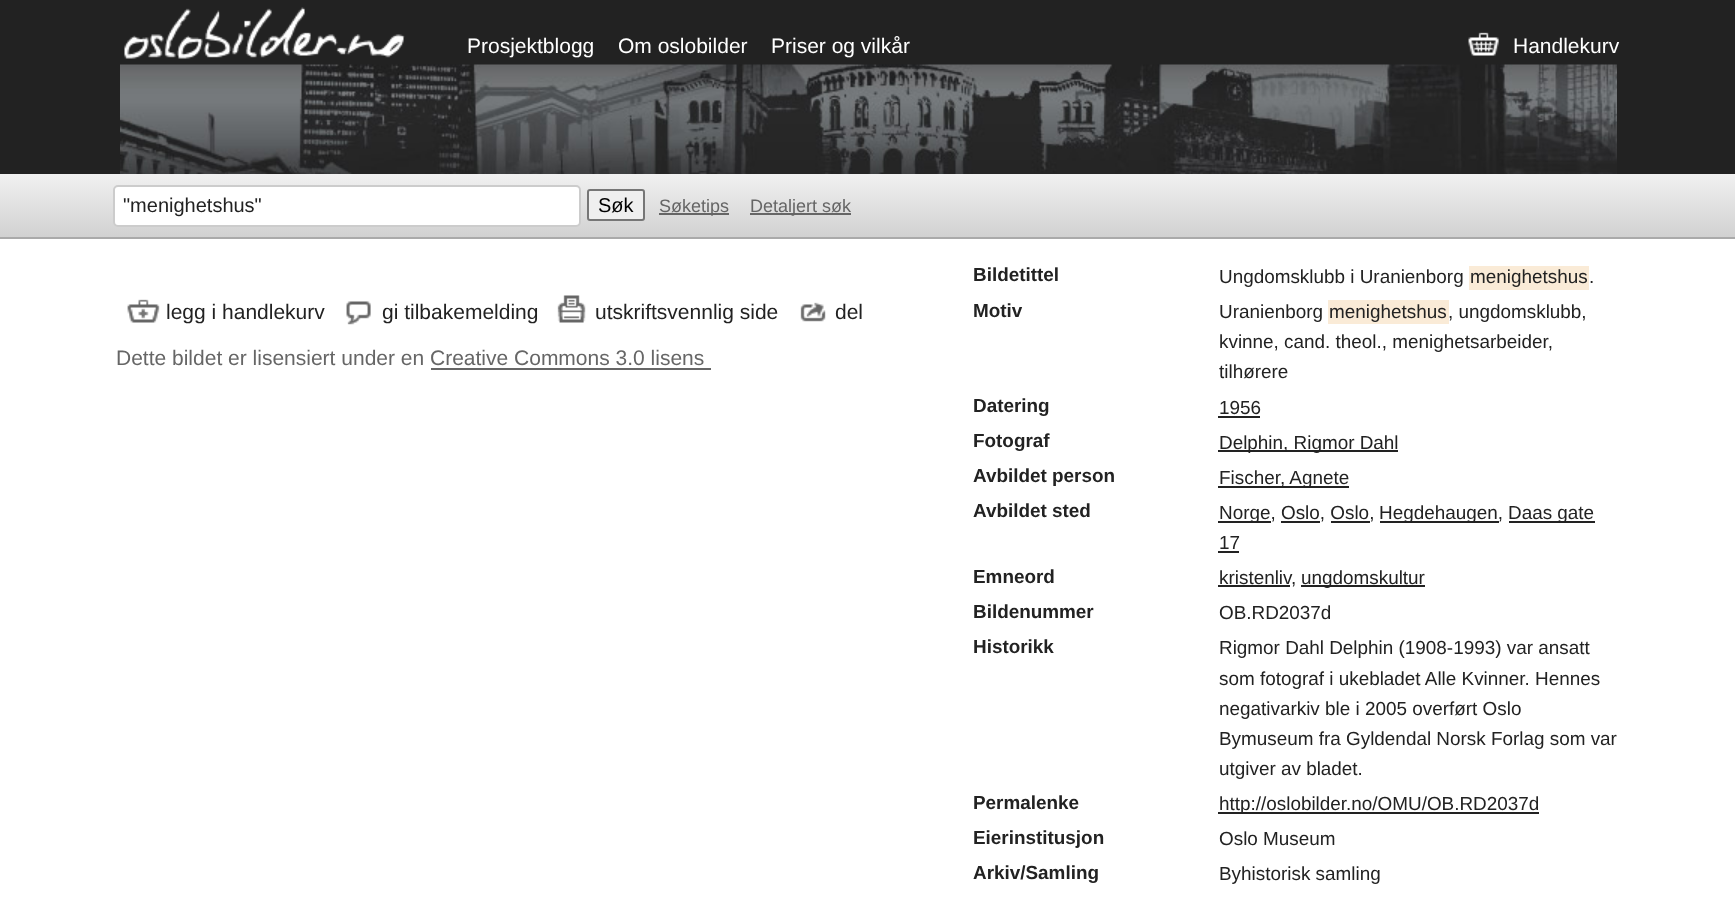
<svg xmlns="http://www.w3.org/2000/svg" width="1735" height="916">
	<defs>
		<linearGradient id="g1" gradientUnits="userSpaceOnUse" x1="868" y1="174" x2="868" y2="237"><stop offset="0" stop-color="#F1F1F1" /><stop offset="1" stop-color="#D1D1D1" /></linearGradient>
	</defs>
	<rect width="100%" height="100%" fill="#FFFFFF" />
	<rect x="0" y="0" width="1735" height="174" fill="#222222" />
	<image x="120" y="64" width="1497" height="110" href="assets/img1.png" />
	<image x="124" y="7" width="281" height="52" href="assets/img2.png" />
	<g font-family="Liberation Sans" font-size="21" fill="#FFFFFF">
		<text x="467" y="53">Prosjektblogg</text>
		<text x="618" y="53">Om oslobilder</text>
		<text x="771" y="53">Priser og vilkår</text>
	</g>
	<image x="1468" y="32" width="31" height="24" href="assets/img3.png" />
	<text x="1513" y="53" font-family="Liberation Sans" font-size="21" fill="#FFFFFF">Handlekurv</text>
	<rect x="0" y="174" width="1735" height="63" fill="url(#g1)" />
	<rect x="0" y="237" width="1735" height="2" fill="#AAAAAA" />
	<rect x="114" y="186" width="466" height="40" rx="4" fill="#FFFFFF" stroke="#CCCCCC" stroke-width="2" />
	<text x="123" y="212" font-family="Liberation Sans" font-size="20" fill="#222222">"menighetshus"</text>
	<rect x="588" y="190" width="56" height="30" rx="2" fill="#EFEFEF" stroke="#767676" stroke-width="2" />
	<text x="598" y="212" font-family="Liberation Sans" font-size="20" fill="#000000">Søk</text>
	<rect x="659" y="213" width="70" height="2" fill="#666666" />
	<text x="659" y="212" font-family="Liberation Sans" font-size="18" fill="#666666">Søketips</text>
	<rect x="750" y="213" width="101" height="2" fill="#666666" />
	<text x="750" y="212" font-family="Liberation Sans" font-size="18" fill="#666666">Detaljert søk</text>
	<image x="127" y="299" width="33" height="24" href="assets/img4.png" />
	<text x="166" y="319" font-family="Liberation Sans" font-size="21" fill="#222222">legg i handlekurv</text>
	<image x="346" y="301" width="25" height="24" href="assets/img5.png" />
	<text x="382" y="319" font-family="Liberation Sans" font-size="21" fill="#222222">gi tilbakemelding</text>
	<image x="557" y="295" width="29" height="28" href="assets/img6.png" />
	<text x="595" y="319" font-family="Liberation Sans" font-size="21" fill="#222222">utskriftsvennlig side</text>
	<image x="800" y="302" width="26" height="20" href="assets/img7.png" />
	<text x="835" y="319" font-family="Liberation Sans" font-size="21" fill="#222222">del</text>
	<text x="116" y="365" font-family="Liberation Sans" font-size="21" fill="#666666">Dette bildet er lisensiert under en Creative Commons 3.0 lisens</text>
	<rect x="431" y="368" width="280" height="2" fill="#666666" />
	<text x="973" y="281" font-family="Liberation Sans" font-size="18.9" font-weight="700" fill="#222222">Bildetittel</text>
	<text x="1219" y="283" font-family="Liberation Sans" font-size="18.9" fill="#222222">Ungdomsklubb i Uranienborg</text>
	<rect x="1469" y="266" width="120" height="24" fill="#FAEBD7" />
	<g font-family="Liberation Sans" font-size="18.9" fill="#222222">
		<text x="1470" y="283">menighetshus</text>
		<text x="1589" y="283">.</text>
	</g>
	<text x="973" y="317" font-family="Liberation Sans" font-size="18.9" font-weight="700" fill="#222222">Motiv</text>
	<text x="1219" y="318" font-family="Liberation Sans" font-size="18.9" fill="#222222">Uranienborg</text>
	<rect x="1328" y="300" width="121" height="24" fill="#FAEBD7" />
	<g font-family="Liberation Sans" font-size="18.9" fill="#222222">
		<text x="1329" y="318">menighetshus</text>
		<text x="1448" y="318">, ungdomsklubb,</text>
		<text x="1219" y="348">kvinne, cand. theol., menighetsarbeider,</text>
		<text x="1219" y="378">tilhørere</text>
	</g>
	<text x="973" y="412" font-family="Liberation Sans" font-size="18.9" font-weight="700" fill="#222222">Datering</text>
	<text x="1219" y="414" font-family="Liberation Sans" font-size="18.9" fill="#222222">1956</text>
	<rect x="1218" y="416" width="42" height="2" fill="#222222" />
	<text x="973" y="447" font-family="Liberation Sans" font-size="18.9" font-weight="700" fill="#222222">Fotograf</text>
	<rect x="1218" y="450" width="180" height="2" fill="#222222" />
	<text x="1219" y="449" font-family="Liberation Sans" font-size="18.9" fill="#222222">Delphin, Rigmor Dahl</text>
	<text x="973" y="482" font-family="Liberation Sans" font-size="18.9" font-weight="700" fill="#222222">Avbildet person</text>
	<rect x="1218" y="486" width="131" height="2" fill="#222222" />
	<text x="1219" y="484" font-family="Liberation Sans" font-size="18.9" fill="#222222">Fischer, Agnete</text>
	<text x="973" y="517" font-family="Liberation Sans" font-size="18.9" font-weight="700" fill="#222222">Avbildet sted</text>
	<rect x="1218" y="521" width="53" height="2" fill="#222222" />
	<text x="1219" y="519" font-family="Liberation Sans" font-size="18.9" fill="#222222">Norge, Oslo, Oslo,</text>
	<rect x="1380" y="521" width="119" height="2" fill="#222222" />
	<text x="1379" y="519" font-family="Liberation Sans" font-size="18.9" fill="#222222">Hegdehaugen,</text>
	<rect x="1509" y="521" width="86" height="2" fill="#222222" />
	<text x="1508" y="519" font-family="Liberation Sans" font-size="18.9" fill="#222222">Daas gate</text>
	<rect x="1281" y="521" width="39" height="2" fill="#222222" />
	<rect x="1331" y="521" width="39" height="2" fill="#222222" />
	<text x="1219" y="549" font-family="Liberation Sans" font-size="18.9" fill="#222222">17</text>
	<rect x="1218" y="551" width="21" height="2" fill="#222222" />
	<text x="973" y="583" font-family="Liberation Sans" font-size="18.9" font-weight="700" fill="#222222">Emneord</text>
	<text x="1219" y="584" font-family="Liberation Sans" font-size="18.9" fill="#222222">kristenliv</text>
	<rect x="1218" y="585" width="72" height="2" fill="#222222" />
	<text x="1291" y="584" font-family="Liberation Sans" font-size="18.9" fill="#222222">,</text>
	<rect x="1301" y="585" width="124" height="2" fill="#222222" />
	<text x="1301" y="584" font-family="Liberation Sans" font-size="18.9" fill="#222222">ungdomskultur</text>
	<text x="973" y="618" font-family="Liberation Sans" font-size="18.9" font-weight="700" fill="#222222">Bildenummer</text>
	<text x="1219" y="619" font-family="Liberation Sans" font-size="18.9" fill="#222222">OB.RD2037d</text>
	<text x="973" y="653" font-family="Liberation Sans" font-size="18.9" font-weight="700" fill="#222222">Historikk</text>
	<g font-family="Liberation Sans" font-size="18.9" fill="#222222">
		<text x="1219" y="654">Rigmor Dahl Delphin (1908-1993) var ansatt</text>
		<text x="1219" y="685">som fotograf i ukebladet Alle Kvinner. Hennes</text>
		<text x="1219" y="715">negativarkiv ble i 2005 overført Oslo</text>
		<text x="1219" y="745">Bymuseum fra Gyldendal Norsk Forlag som var</text>
		<text x="1219" y="775">utgiver av bladet.</text>
	</g>
	<text x="973" y="809" font-family="Liberation Sans" font-size="18.9" font-weight="700" fill="#222222">Permalenke</text>
	<rect x="1218" y="812" width="321" height="2" fill="#222222" />
	<text x="1219" y="810" font-family="Liberation Sans" font-size="18.9" fill="#222222">http://oslobilder.no/OMU/OB.RD2037d</text>
	<text x="973" y="844" font-family="Liberation Sans" font-size="18.9" font-weight="700" fill="#222222">Eierinstitusjon</text>
	<text x="1219" y="845" font-family="Liberation Sans" font-size="18.9" fill="#222222">Oslo Museum</text>
	<text x="973" y="879" font-family="Liberation Sans" font-size="18.9" font-weight="700" fill="#222222">Arkiv/Samling</text>
	<text x="1219" y="880" font-family="Liberation Sans" font-size="18.9" fill="#222222">Byhistorisk samling</text>
</svg>
